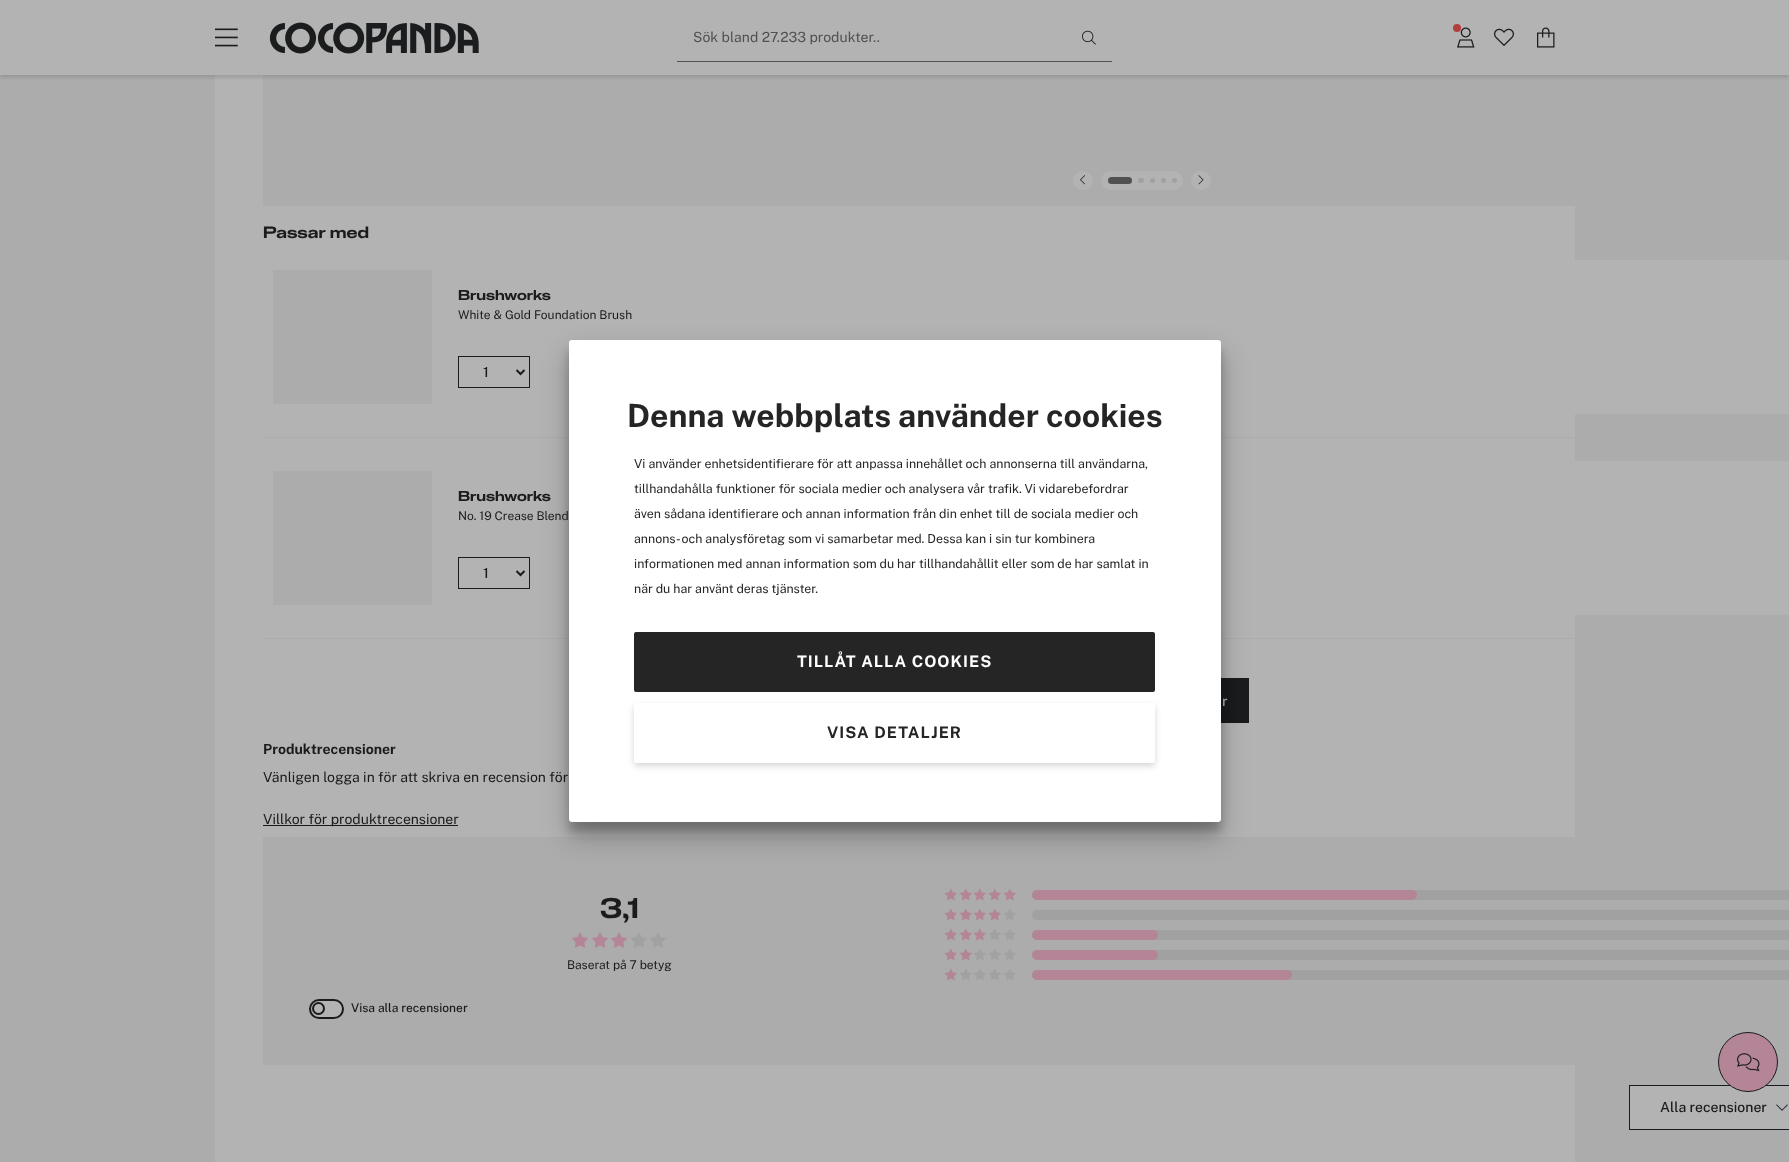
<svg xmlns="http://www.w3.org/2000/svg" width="1789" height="1162">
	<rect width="100%" height="100%" fill="#ACACAC" />
	<rect x="215" y="75" width="1360" height="1087" fill="#B3B3B3" />
	<rect x="263" y="75" width="1312" height="131" fill="#ACACAC" />
	<rect x="0" y="2" width="1789" height="75" fill="#000000" fill-opacity="0.15" filter="blur(2px)" />
	<rect x="0" y="0" width="1789" height="75" fill="#B3B3B3" />
	<image x="215" y="28" width="23" height="19" href="assets/img1.png" />
	<image x="269" y="22" width="210" height="32" href="assets/img2.png" />
	<rect x="677" y="61" width="435" height="1" fill="#515151" />
	<text x="693" y="42" font-family="'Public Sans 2'" font-size="14" font-weight="100" fill="#515151">Sök bland 27.233 produkter..</text>
	<image x="1082" y="30" width="14" height="15" href="assets/img3.png" />
	<image x="1457" y="27" width="18" height="21" href="assets/img4.png" />
	<circle cx="1457" cy="28" r="4" fill="#B33E3E" />
	<image x="1494" y="28" width="20" height="19" href="assets/img5.png" />
	<image x="1537" y="27" width="18" height="21" href="assets/img6.png" />
	<rect x="1073" y="171" width="20" height="19" rx="9.5" fill="#B3B3B3" />
	<image x="1080" y="175" width="5" height="10" href="assets/img7.png" />
	<rect x="1101" y="171" width="82" height="19" rx="9.5" fill="#B3B3B3" />
	<rect x="1108" y="177" width="24" height="7" rx="3.5" fill="#515151" />
	<rect x="1138" y="178" width="6" height="5" rx="2.5" fill="#A1A1A1" />
	<circle cx="1152.5" cy="180.5" r="2.5" fill="#A1A1A1" />
	<circle cx="1163.5" cy="180.5" r="2.5" fill="#A1A1A1" />
	<circle cx="1174.5" cy="180.5" r="2.5" fill="#A1A1A1" />
	<rect x="1191" y="171" width="20" height="19" rx="9.5" fill="#B3B3B3" />
	<image x="1198" y="175" width="6" height="10" href="assets/img8.png" />
	<text x="263" y="238" font-family="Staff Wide" font-size="16" font-weight="600" fill="#1A1B1D">Passar med</text>
	<rect x="1575" y="260" width="214" height="154" fill="#B3B3B3" />
	<rect x="273" y="270" width="159" height="134" fill="#ACACAC" />
	<text x="458" y="300" font-family="Staff Wide" font-size="14" font-weight="600" fill="#1A1B1D">Brushworks</text>
	<text x="458" y="319" font-family="'Public Sans 2'" font-size="12" font-weight="100" fill="#1A1B1D">White &amp; Gold Foundation Brush</text>
	<rect x="458.5" y="356.5" width="71" height="31" fill="none" stroke="#1A1B1D" />
	<path d="M516.5 370L520.5 374L524.5 370" fill="none" stroke="#1A1B1D" stroke-width="2" />
	<text x="483" y="377" font-family="'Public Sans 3'" font-size="14" font-weight="100" fill="#1A1B1D">1</text>
	<rect x="263" y="437" width="1312" height="1" fill="#ACACAC" />
	<rect x="1575" y="461" width="214" height="154" fill="#B3B3B3" />
	<rect x="273" y="471" width="159" height="134" fill="#ACACAC" />
	<text x="458" y="501" font-family="Staff Wide" font-size="14" font-weight="600" fill="#1A1B1D">Brushworks</text>
	<text x="458" y="520" font-family="'Public Sans 2'" font-size="12" font-weight="100" fill="#1A1B1D">No. 19 Crease Blend</text>
	<rect x="458.5" y="557.5" width="71" height="31" fill="none" stroke="#1A1B1D" />
	<path d="M516.5 571L520.5 575L524.5 571" fill="none" stroke="#1A1B1D" stroke-width="2" />
	<text x="483" y="578" font-family="'Public Sans 3'" font-size="14" font-weight="100" fill="#1A1B1D">1</text>
	<rect x="263" y="638" width="1312" height="1" fill="#ACACAC" />
	<rect x="1221" y="678" width="28" height="45" fill="#1A1B1D" />
	<text x="1222" y="706" font-family="'Public Sans 3'" font-size="14" font-weight="100" fill="#B3B3B3">r</text>
	<text x="263" y="754" font-family="Public Sans" font-size="14" font-weight="100" fill="#1A1B1D">Produktrecensioner</text>
	<text x="263" y="782" font-family="'Public Sans 2'" font-size="14" font-weight="100" fill="#1A1B1D">Vänligen logga in för att skriva en recension för</text>
	<rect x="263" y="825" width="195" height="1" fill="#1A1B1D" />
	<text x="263" y="824" font-family="'Public Sans 2'" font-size="14" font-weight="100" fill="#1A1B1D">Villkor för produktrecensioner</text>
	<rect x="263" y="837" width="1312" height="228" fill="#ACACAC" />
	<text x="600" y="918" font-family="Staff Wide" font-size="28" font-weight="600" fill="#1A1B1D">3,1</text>
	<image x="571" y="932" width="18" height="16" href="assets/img9.png" />
	<image x="591" y="932" width="18" height="16" href="assets/img9.png" />
	<image x="610" y="932" width="18" height="16" href="assets/img9.png" />
	<image x="631" y="933" width="16" height="15" href="assets/img10.png" />
	<image x="650" y="933" width="16" height="15" href="assets/img10.png" />
	<text x="567" y="969" font-family="'Public Sans 2'" font-size="12" font-weight="100" fill="#1A1B1D">Baserat på 7 betyg</text>
	<image x="944" y="888" width="13" height="13" href="assets/img11.png" />
	<image x="959" y="888" width="13" height="13" href="assets/img11.png" />
	<image x="973" y="888" width="13" height="13" href="assets/img11.png" />
	<image x="988" y="888" width="13" height="13" href="assets/img11.png" />
	<image x="1003" y="888" width="13" height="13" href="assets/img11.png" />
	<rect x="1032" y="890" width="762" height="10" rx="5" fill="#A1A1A1" />
	<rect x="1032" y="890" width="385" height="10" rx="5" fill="#B38597" />
	<image x="944" y="908" width="13" height="13" href="assets/img11.png" />
	<image x="959" y="908" width="13" height="13" href="assets/img11.png" />
	<image x="973" y="908" width="13" height="13" href="assets/img11.png" />
	<image x="988" y="908" width="13" height="13" href="assets/img11.png" />
	<image x="1004" y="909" width="12" height="11" href="assets/img12.png" />
	<rect x="1032" y="910" width="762" height="10" rx="5" fill="#A1A1A1" />
	<image x="944" y="928" width="13" height="13" href="assets/img11.png" />
	<image x="959" y="928" width="13" height="13" href="assets/img11.png" />
	<image x="973" y="928" width="13" height="13" href="assets/img11.png" />
	<image x="989" y="929" width="12" height="11" href="assets/img12.png" />
	<image x="1004" y="929" width="12" height="11" href="assets/img12.png" />
	<rect x="1032" y="930" width="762" height="10" rx="5" fill="#A1A1A1" />
	<rect x="1032" y="930" width="126" height="10" rx="5" fill="#B38597" />
	<image x="944" y="948" width="13" height="13" href="assets/img11.png" />
	<image x="959" y="948" width="13" height="13" href="assets/img11.png" />
	<image x="974" y="949" width="12" height="11" href="assets/img12.png" />
	<image x="989" y="949" width="12" height="11" href="assets/img12.png" />
	<image x="1004" y="949" width="12" height="11" href="assets/img12.png" />
	<rect x="1032" y="950" width="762" height="10" rx="5" fill="#A1A1A1" />
	<rect x="1032" y="950" width="126" height="10" rx="5" fill="#B38597" />
	<image x="944" y="968" width="13" height="13" href="assets/img11.png" />
	<image x="960" y="969" width="12" height="11" href="assets/img12.png" />
	<image x="974" y="969" width="12" height="11" href="assets/img12.png" />
	<image x="989" y="969" width="12" height="11" href="assets/img12.png" />
	<image x="1004" y="969" width="12" height="11" href="assets/img12.png" />
	<rect x="1032" y="970" width="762" height="10" rx="5" fill="#A1A1A1" />
	<rect x="1032" y="970" width="260" height="10" rx="5" fill="#B38597" />
	<rect x="310" y="1000" width="33" height="18" rx="9" fill="#B3B3B3" stroke="#1A1B1D" stroke-width="2" />
	<circle cx="318.5" cy="1008.5" r="5.5" fill="none" stroke="#1A1B1D" stroke-width="2" />
	<text x="351" y="1012" font-family="'Public Sans 3'" font-size="12" font-weight="100" fill="#1A1B1D">Visa alla recensioner</text>
	<rect x="1629.5" y="1085.5" width="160" height="44" fill="#B3B3B3" stroke="#1A1B1D" />
	<text x="1660" y="1112" font-family="'Public Sans 3'" font-size="14" font-weight="100" fill="#1A1B1D">Alla recensioner</text>
	<image x="1776" y="1104" width="12" height="7" href="assets/img13.png" />
	<rect x="569" y="350" width="652" height="482" rx="3" fill="#000000" fill-opacity="0.22" filter="blur(5px)" />
	<rect x="569" y="354" width="652" height="482" rx="3" fill="#000000" fill-opacity="0.25" filter="blur(14px)" />
	<rect x="569" y="340" width="652" height="482" rx="3" fill="#FFFFFF" />
	<text x="627" y="427" font-family="Public Sans" font-size="32" font-weight="100" fill="#252525">Denna webbplats använder cookies</text>
	<g font-family="'Public Sans 2'" font-size="12.4" font-weight="100" fill="#252525">
		<text x="634" y="468">Vi använder enhetsidentifierare för att anpassa innehållet och annonserna till användarna,</text>
		<text x="634" y="493">tillhandahålla funktioner för sociala medier och analysera vår trafik. Vi vidarebefordrar</text>
		<text x="634" y="518">även sådana identifierare och annan information från din enhet till de sociala medier och</text>
		<text x="634" y="543">annons- och analysföretag som vi samarbetar med. Dessa kan i sin tur kombinera</text>
		<text x="634" y="568">informationen med annan information som du har tillhandahållit eller som de har samlat in</text>
		<text x="634" y="593">när du har använt deras tjänster.</text>
	</g>
	<rect x="635" y="633" width="519" height="58" rx="1" fill="#252525" stroke="#252525" stroke-width="2" />
	<text x="797" y="667" font-family="Public Sans" font-size="16" font-weight="100" letter-spacing="1" fill="#FFFFFF">TILLÅT ALLA COOKIES</text>
	<rect x="634" y="706" width="521" height="60" rx="2" fill="#000000" fill-opacity="0.16" filter="blur(3px)" />
	<rect x="635" y="704" width="519" height="58" rx="1" fill="#FFFFFF" stroke="#FFFFFF" stroke-width="2" />
	<text x="827" y="738" font-family="Public Sans" font-size="16" font-weight="100" letter-spacing="1" fill="#252525">VISA DETALJER</text>
	<circle cx="1748" cy="1062" r="29.5" fill="#B38597" stroke="#1A1B1D" />
	<image x="1737" y="1053" width="23" height="19" href="assets/img14.png" />
</svg>
